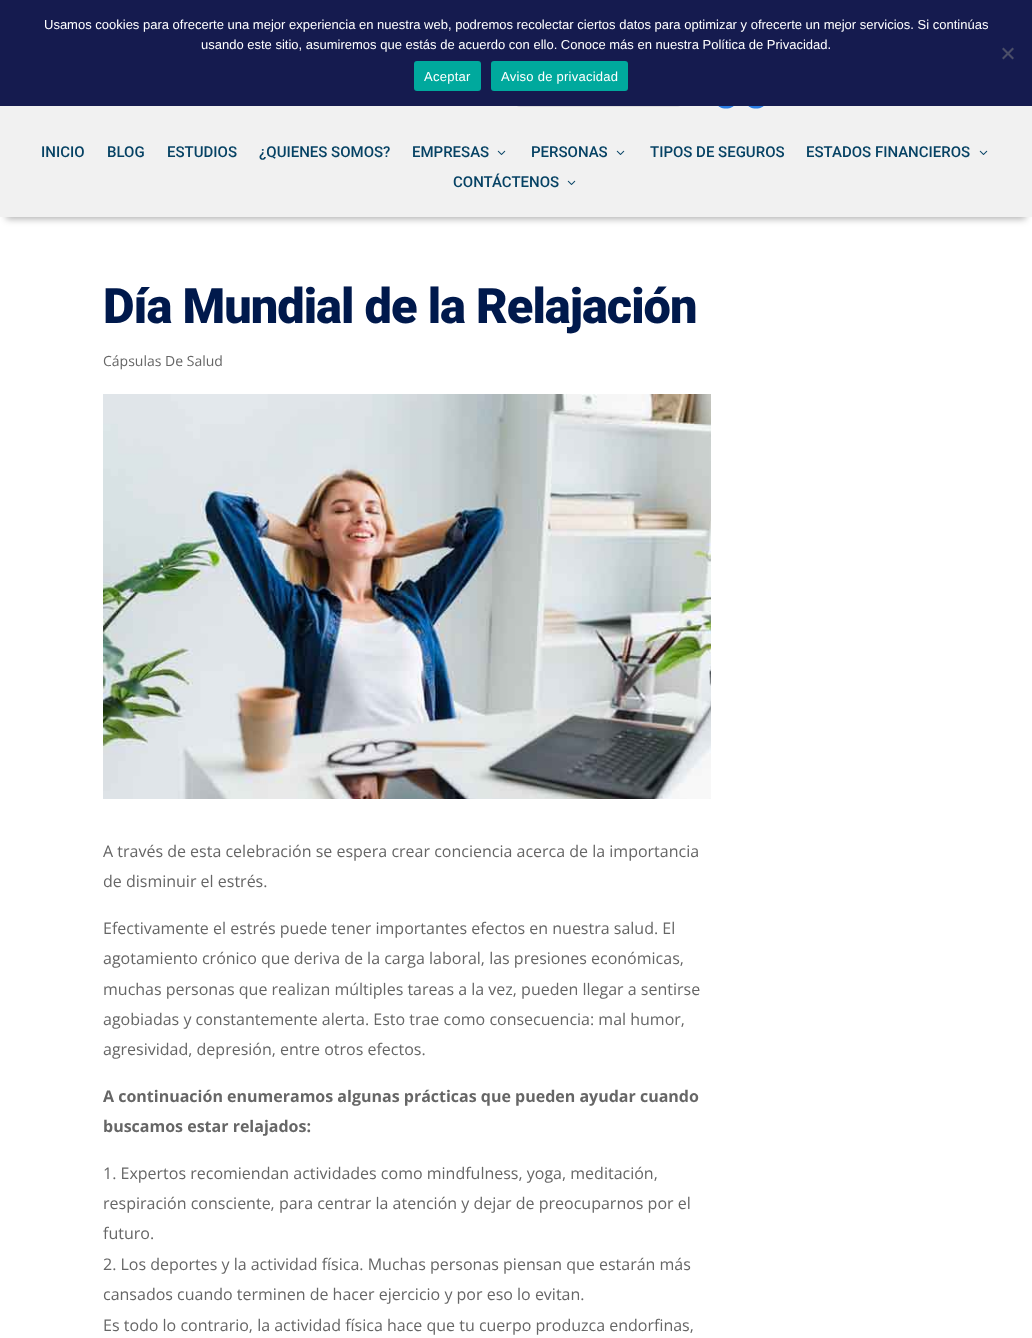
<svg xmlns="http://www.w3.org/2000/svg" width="1032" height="1338">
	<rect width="100%" height="100%" fill="#FFFFFF" />
	<rect x="0" y="106" width="1032" height="10" fill="#F1F1F1" />
	<rect x="516.5" y="60.5" width="164" height="46" rx="2.5" fill="none" stroke="#DDDDDD" />
	<rect x="0" y="0" width="1032" height="106" fill="#151B4F" />
	<g font-family="Liberation Sans" font-size="13" fill="#FFFFFF">
		<text x="44" y="29">Usamos cookies para ofrecerte una mejor experiencia en nuestra web, podremos recolectar ciertos datos para optimizar y ofrecerte un mejor servicios. Si continúas</text>
		<text x="201" y="49">usando este sitio, asumiremos que estás de acuerdo con ello. Conoce más en nuestra Política de Privacidad.</text>
	</g>
	<path d="M1012.5 47.5L1014 49L1003.5 59.5L1002 58Z" fill="#4B4E68" />
	<path d="M1002 49L1003.5 47.5L1014 58L1012.5 59.5Z" fill="#4B4E68" />
	<rect x="414" y="61" width="67" height="30" rx="3" fill="#00A99D" />
	<text x="424" y="81" font-family="Liberation Sans" font-size="13" letter-spacing="0.25" fill="#FFFFFF">Aceptar</text>
	<rect x="491" y="61" width="137" height="30" rx="3" fill="#00A99D" />
	<text x="501" y="81" font-family="Liberation Sans" font-size="13" letter-spacing="0.25" fill="#FFFFFF">Aviso de privacidad</text>
	<image x="718" y="106" width="16" height="3" href="assets/img1.png" />
	<image x="748" y="106" width="16" height="3" href="assets/img1.png" />
	<rect x="6" y="130" width="1020" height="89" fill="#000000" fill-opacity="0.3" filter="blur(3.5px)" />
	<rect x="0" y="116" width="1032" height="101" fill="#F1F1F1" />
	<g font-family="Roboto" font-size="15" font-weight="500" fill="#064264">
		<text x="41" y="157">INICIO</text>
		<text x="107" y="157">BLOG</text>
		<text x="167" y="157">ESTUDIOS</text>
		<text x="259" y="157">¿QUIENES SOMOS?</text>
		<text x="412" y="157">EMPRESAS</text>
	</g>
	<image x="497" y="150" width="9" height="5" href="assets/img2.png" />
	<text x="531" y="157" font-family="Roboto" font-size="15" font-weight="500" fill="#064264">PERSONAS</text>
	<image x="616" y="150" width="9" height="5" href="assets/img2.png" />
	<g font-family="Roboto" font-size="15" font-weight="500" fill="#064264">
		<text x="650" y="157">TIPOS DE SEGUROS</text>
		<text x="806" y="157">ESTADOS FINANCIEROS</text>
	</g>
	<image x="979" y="150" width="9" height="5" href="assets/img2.png" />
	<text x="453" y="187" font-family="Roboto" font-size="15" font-weight="500" fill="#064264">CONTÁCTENOS</text>
	<image x="567" y="180" width="9" height="5" href="assets/img2.png" />
	<text x="103" y="323" font-family="Roboto" font-size="48.75" font-weight="900" letter-spacing="-1" fill="#00194C">Día Mundial de la Relajación</text>
	<text x="103" y="366" font-family="Open Sans" font-size="14" fill="#666666">Cápsulas De Salud</text>
	<image x="103" y="394" width="608" height="405" href="assets/img3.png" />
	<g font-family="Open Sans" font-size="16" fill="#666666">
		<text x="103" y="857">A través de esta celebración se espera crear conciencia acerca de la importancia</text>
		<text x="103" y="887">de disminuir el estrés.</text>
		<text x="103" y="934">Efectivamente el estrés puede tener importantes efectos en nuestra salud. El</text>
		<text x="103" y="964">agotamiento crónico que deriva de la carga laboral, las presiones económicas,</text>
		<text x="103" y="995">muchas personas que realizan múltiples tareas a la vez, pueden llegar a sentirse</text>
		<text x="103" y="1025">agobiadas y constantemente alerta. Esto trae como consecuencia: mal humor,</text>
		<text x="103" y="1055">agresividad, depresión, entre otros efectos.</text>
	</g>
	<g font-family="Open Sans" font-size="16" font-weight="700" fill="#666666">
		<text x="103" y="1102">A continuación enumeramos algunas prácticas que pueden ayudar cuando</text>
		<text x="103" y="1132">buscamos estar relajados:</text>
	</g>
	<g font-family="Open Sans" font-size="16" fill="#666666">
		<text x="103" y="1179">1. Expertos recomiendan actividades como mindfulness, yoga, meditación,</text>
		<text x="103" y="1209">respiración consciente, para centrar la atención y dejar de preocuparnos por el</text>
		<text x="103" y="1239">futuro.</text>
		<text x="103" y="1270">2. Los deportes y la actividad física. Muchas personas piensan que estarán más</text>
		<text x="103" y="1300">cansados cuando terminen de hacer ejercicio y por eso lo evitan.</text>
		<text x="103" y="1331">Es todo lo contrario, la actividad física hace que tu cuerpo produzca endorfinas,</text>
	</g>
</svg>
